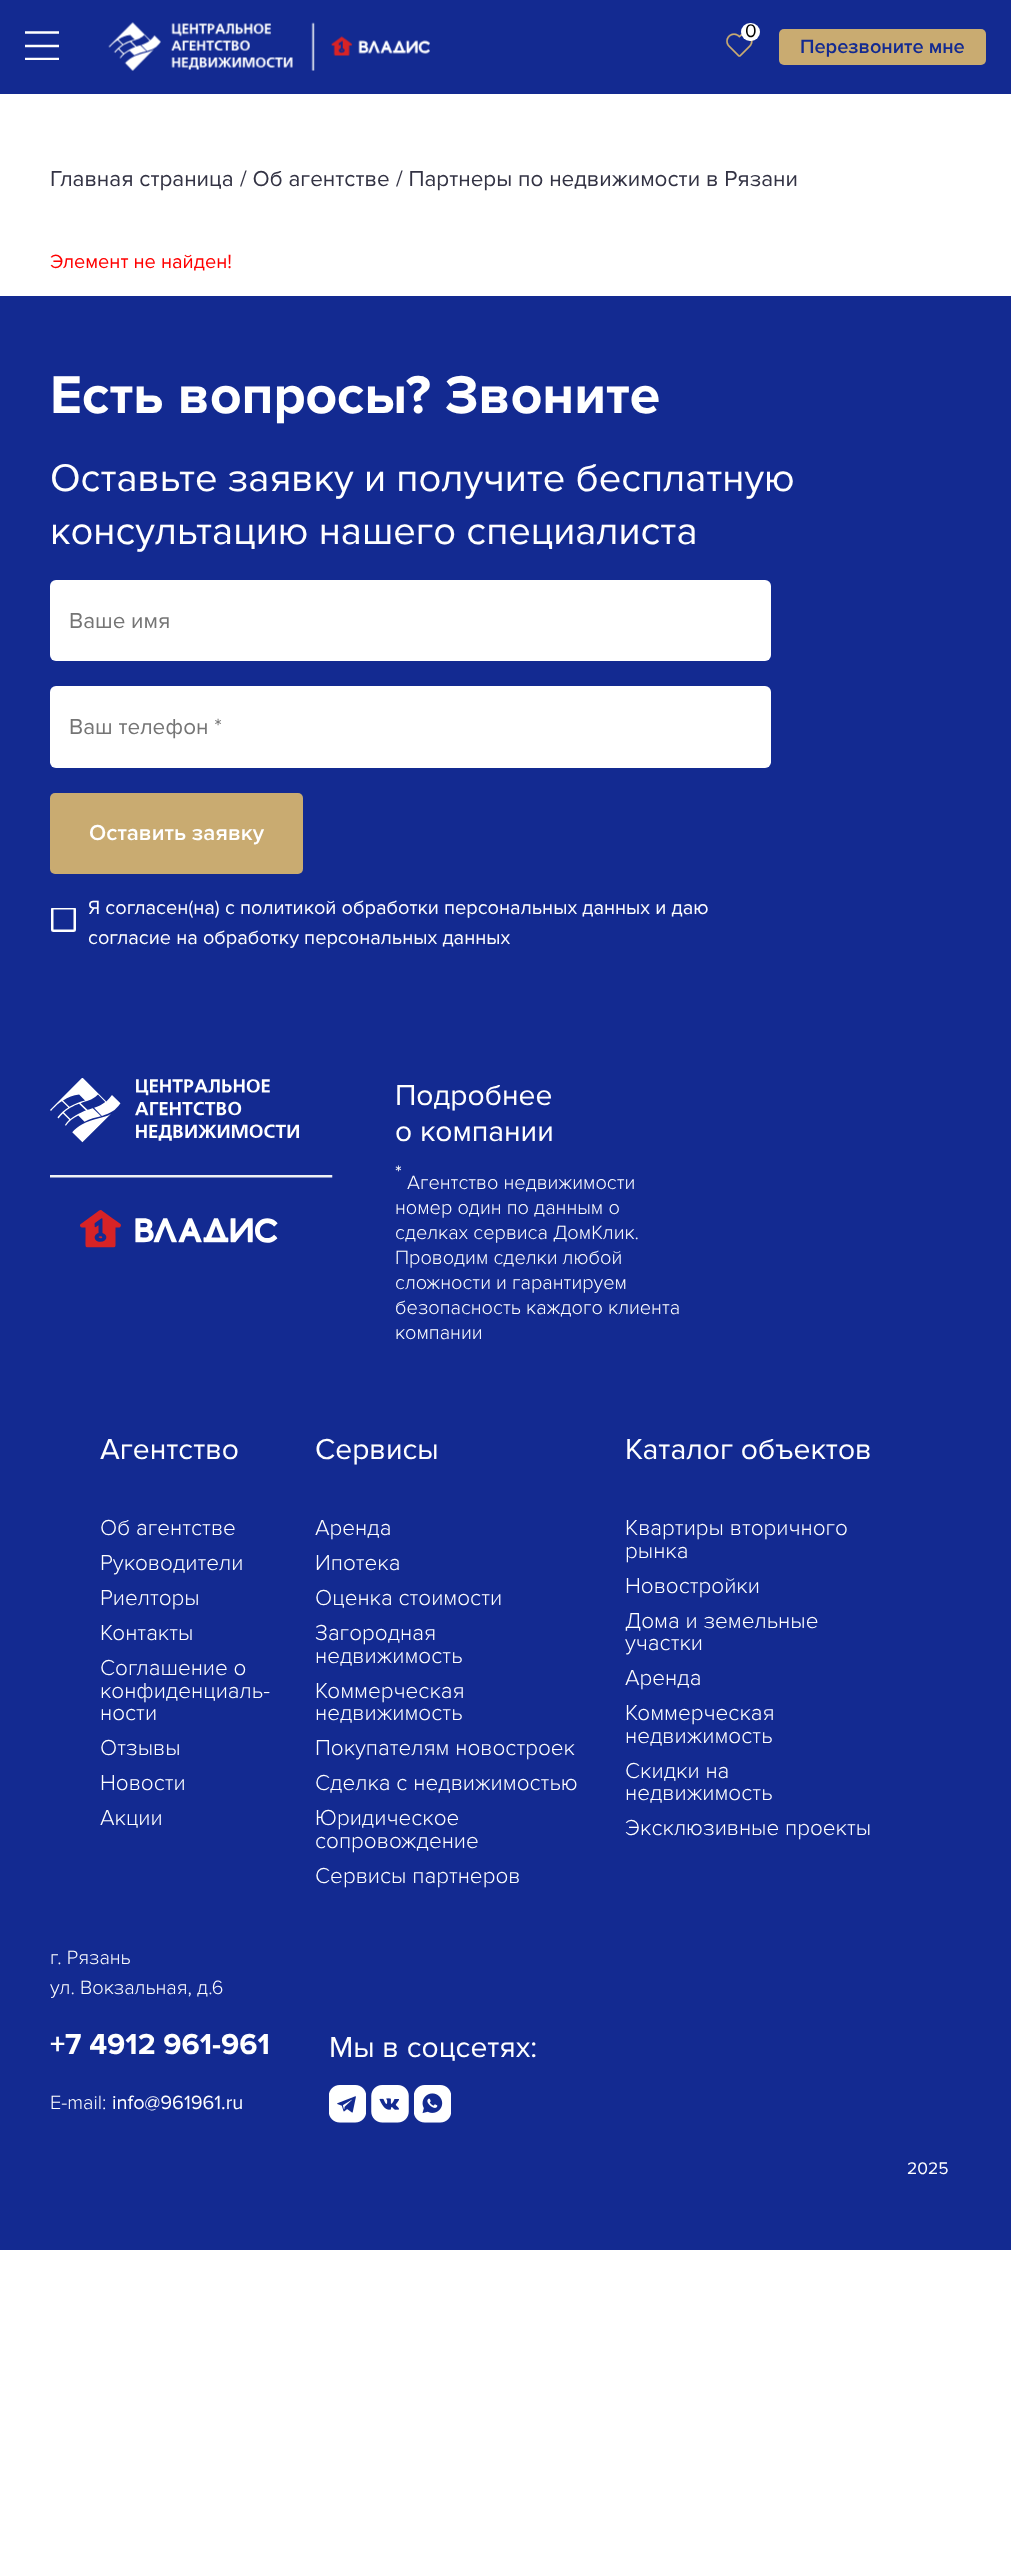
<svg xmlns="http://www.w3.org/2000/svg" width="1011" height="2560">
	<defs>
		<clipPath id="clip1"><rect x="25" y="31" width="34" height="29" /></clipPath>
		<clipPath id="clip2"><rect x="51" y="908" width="25" height="25" /></clipPath>
	</defs>
	<rect width="100%" height="100%" fill="#FFFFFF" />
	<rect x="0" y="0" width="1011" height="94" fill="#132A91" />
	<g clip-path="url(#clip1)">
		<path d="M25 32.5H59M25 46H59M25 59H59" fill="none" stroke="#FFFFFF" stroke-width="2.5" />
	</g>
	<image x="108" y="22" width="322" height="49" href="assets/img1.png" />
	<image x="726" y="33" width="27" height="24" href="assets/img2.png" />
	<rect x="741" y="23" width="19" height="18" rx="9" fill="#FFFFFF" />
	<text x="745" y="37" font-family="Proxima Nova" font-size="19" fill="#000000">0</text>
	<rect x="779" y="29" width="207" height="36" rx="5" fill="#C9AB71" />
	<text x="800" y="53" font-family="Proxima Nova" font-size="20" font-weight="600" fill="#132A91">Перезвоните мне</text>
	<g font-family="Proxima Nova" font-size="22.5" fill="#333344">
		<text x="50" y="186">Главная страница</text>
		<text x="240" y="186">/ Об агентстве</text>
		<text x="396" y="186">/ Партнеры по недвижимости в Рязани</text>
	</g>
	<text x="50" y="268" font-family="Proxima Nova" font-size="20" fill="#FF0000">Элемент не найден!</text>
	<rect x="0" y="296" width="1011" height="1954" fill="#132A91" />
	<text x="50" y="413" font-family="Proxima Nova" font-size="55" font-weight="700" fill="#FFFFFF">Есть вопросы? Звоните</text>
	<g font-family="Proxima Nova" font-size="40" fill="#FFFFFF">
		<text x="50" y="491">Оставьте заявку и получите бесплатную</text>
		<text x="50" y="544">консультацию нашего специалиста</text>
	</g>
	<rect x="50" y="580" width="721" height="81" rx="6" fill="#FFFFFF" />
	<text x="69" y="628" font-family="Proxima Nova" font-size="22.5" fill="#757575">Ваше имя</text>
	<rect x="50" y="686" width="721" height="82" rx="6" fill="#FFFFFF" />
	<text x="69" y="734" font-family="Proxima Nova" font-size="22.5" fill="#757575">Ваш телефон *</text>
	<rect x="50" y="793" width="253" height="81" rx="5" fill="#C9AB71" />
	<text x="89" y="840" font-family="Proxima Nova" font-size="22.5" font-weight="600" fill="#FFFFFF">Оставить заявку</text>
	<g clip-path="url(#clip2)">
		<rect x="52.25" y="908.25" width="22.5" height="22.5" rx="1.25" fill="none" stroke="#FFFFFF" stroke-width="2.5" />
	</g>
	<g font-family="Proxima Nova" font-size="20" fill="#FFFFFF">
		<text x="88" y="914">Я согласен(на) с политикой обработки персональных данных и даю</text>
		<text x="88" y="944">согласие на обработку персональных данных</text>
	</g>
	<image x="50" y="1078" width="283" height="170" href="assets/img3.png" />
	<g font-family="Proxima Nova" font-size="30" fill="#FFFFFF">
		<text x="395" y="1105">Подробнее</text>
		<text x="395" y="1141">о компании</text>
	</g>
	<text x="395" y="1179" font-family="Proxima Nova" font-size="20" fill="#FFFFFF">*</text>
	<g font-family="Proxima Nova" font-size="20" font-weight="300" fill="#FFFFFF">
		<text x="407" y="1189">Агентство недвижимости</text>
		<text x="395" y="1214">номер один по данным о</text>
		<text x="395" y="1239">сделках сервиса ДомКлик.</text>
		<text x="395" y="1264">Проводим сделки любой</text>
		<text x="395" y="1289">сложности и гарантируем</text>
		<text x="395" y="1314">безопасность каждого клиента</text>
		<text x="395" y="1339">компании</text>
	</g>
	<text x="100" y="1459" font-family="Proxima Nova" font-size="30" fill="#FFFFFF">Агентство</text>
	<g font-family="Proxima Nova" font-size="22.5" font-weight="300" fill="#FFFFFF">
		<text x="100" y="1535">Об агентстве</text>
		<text x="100" y="1570">Руководители</text>
		<text x="100" y="1605">Риелторы</text>
		<text x="100" y="1640">Контакты</text>
		<text x="100" y="1675">Соглашение о</text>
		<text x="100" y="1698">конфиденциаль-</text>
		<text x="100" y="1720">ности</text>
		<text x="100" y="1755">Отзывы</text>
		<text x="100" y="1790">Новости</text>
		<text x="100" y="1825">Акции</text>
	</g>
	<text x="315" y="1459" font-family="Proxima Nova" font-size="30" fill="#FFFFFF">Сервисы</text>
	<g font-family="Proxima Nova" font-size="22.5" font-weight="300" fill="#FFFFFF">
		<text x="315" y="1535">Аренда</text>
		<text x="315" y="1570">Ипотека</text>
		<text x="315" y="1605">Оценка стоимости</text>
		<text x="315" y="1640">Загородная</text>
		<text x="315" y="1663">недвижимость</text>
		<text x="315" y="1698">Коммерческая</text>
		<text x="315" y="1720">недвижимость</text>
		<text x="315" y="1755">Покупателям новостроек</text>
		<text x="315" y="1790">Сделка с недвижимостью</text>
		<text x="315" y="1825">Юридическое</text>
		<text x="315" y="1848">сопровождение</text>
		<text x="315" y="1883">Сервисы партнеров</text>
	</g>
	<text x="625" y="1459" font-family="Proxima Nova" font-size="30" fill="#FFFFFF">Каталог объектов</text>
	<g font-family="Proxima Nova" font-size="22.5" font-weight="300" fill="#FFFFFF">
		<text x="625" y="1535">Квартиры вторичного</text>
		<text x="625" y="1558">рынка</text>
		<text x="625" y="1593">Новостройки</text>
		<text x="625" y="1628">Дома и земельные</text>
		<text x="625" y="1650">участки</text>
		<text x="625" y="1685">Аренда</text>
		<text x="625" y="1720">Коммерческая</text>
		<text x="625" y="1743">недвижимость</text>
		<text x="625" y="1778">Скидки на</text>
		<text x="625" y="1800">недвижимость</text>
		<text x="625" y="1835">Эксклюзивные проекты</text>
	</g>
	<g font-family="Proxima Nova" font-size="20" font-weight="300" fill="#FFFFFF">
		<text x="50" y="1964">г. Рязань</text>
		<text x="50" y="1994">ул. Вокзальная, д.6</text>
	</g>
	<text x="50" y="2054" font-family="Proxima Nova" font-size="30" font-weight="700" fill="#FFFFFF">+7 4912 961-961</text>
	<text x="50" y="2109" font-family="Proxima Nova" font-size="20" font-weight="300" fill="#FFFFFF">E-mail:</text>
	<text x="112" y="2109" font-family="Proxima Nova" font-size="20" fill="#FFFFFF">info@961961.ru</text>
	<text x="329" y="2057" font-family="Proxima Nova" font-size="30" fill="#FFFFFF">Мы в соцсетях:</text>
	<image x="329" y="2085" width="37" height="38" href="assets/img4.png" />
	<image x="371" y="2085" width="38" height="38" href="assets/img5.png" />
	<image x="414" y="2085" width="37" height="38" href="assets/img6.png" />
	<text x="907" y="2174" font-family="Proxima Nova" font-size="17.5" fill="#FFFFFF">2025</text>
</svg>
